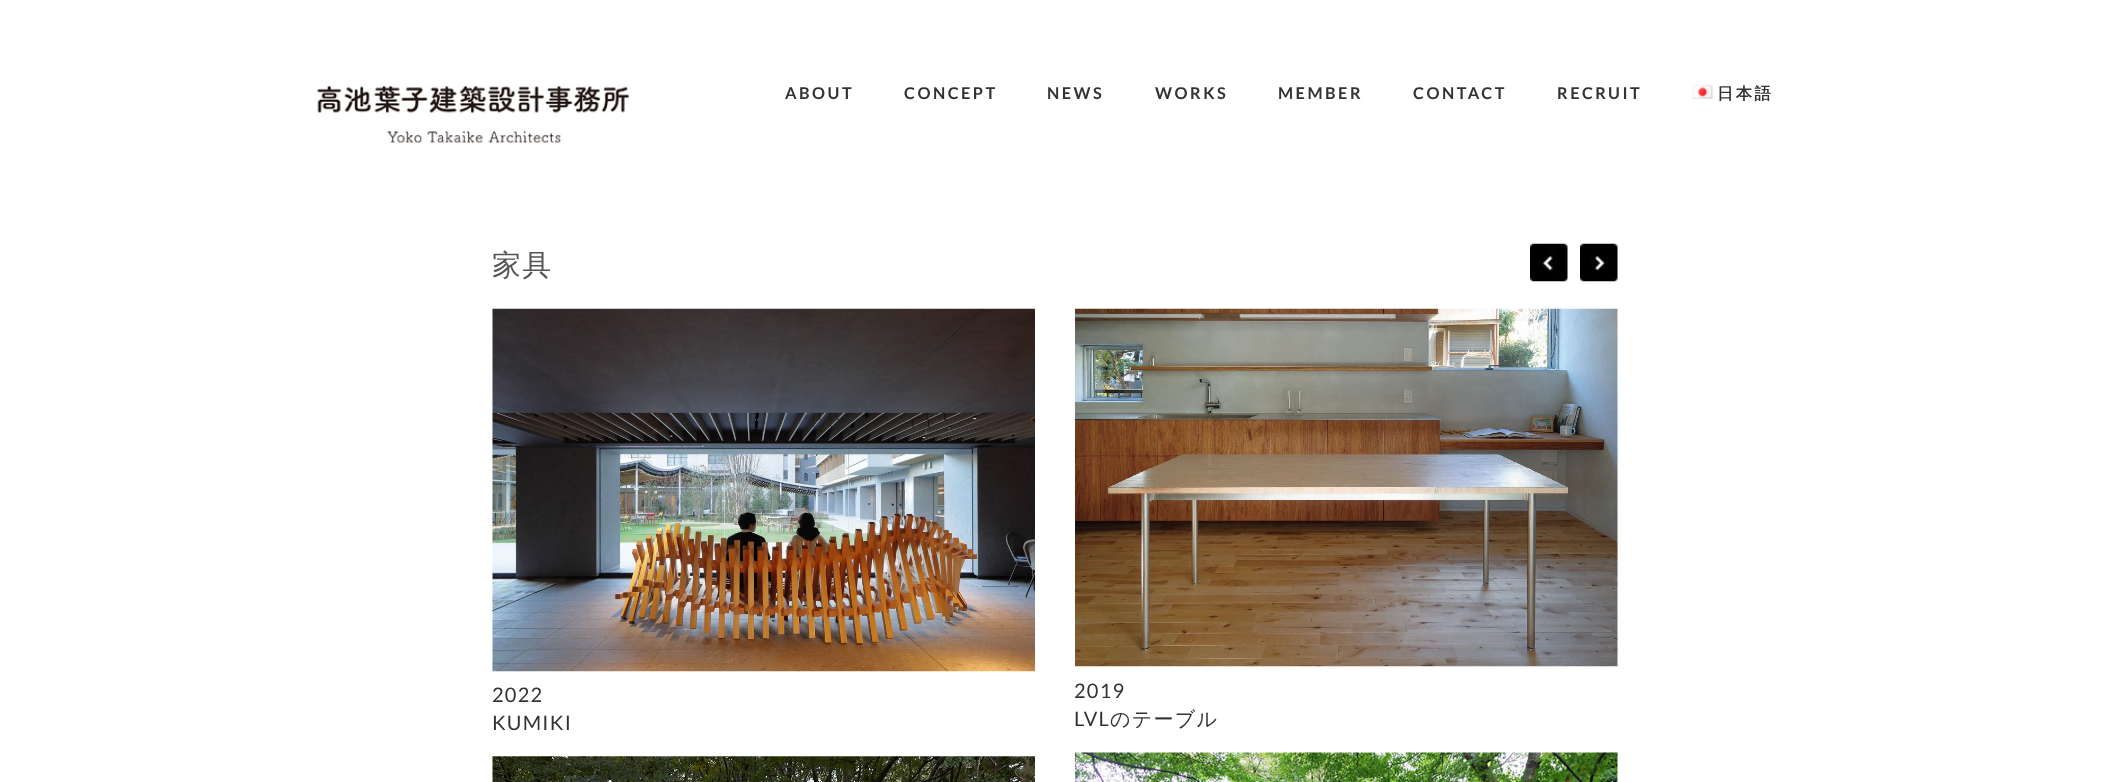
<svg xmlns="http://www.w3.org/2000/svg" width="2108" height="782">
	<rect width="100%" height="100%" fill="#FFFFFF" />
	<image x="317" y="86" width="312" height="58" href="assets/img1.png" />
	<g font-family="Lato" font-size="16.25" font-weight="700" letter-spacing="2.5" fill="#333333">
		<text x="785" y="99">ABOUT</text>
		<text x="904" y="99">CONCEPT</text>
		<text x="1047" y="99">NEWS</text>
		<text x="1155" y="99">WORKS</text>
		<text x="1278" y="99">MEMBER</text>
		<text x="1413" y="99">CONTACT</text>
		<text x="1557" y="99">RECRUIT</text>
	</g>
	<image x="1692" y="85" width="21" height="14" href="assets/img2.png" />
	<text x="1717" y="99" font-family="WenQuanYi Zen Hei" font-size="16.25" font-weight="700" letter-spacing="2.5" fill="#333333">日本語</text>
	<text x="492" y="275" font-family="WenQuanYi Zen Hei" font-size="29" font-weight="500" letter-spacing="1.25" fill="#555555">家具</text>
	<image x="1530" y="243" width="38" height="39" href="assets/img3.png" />
	<image x="1580" y="243" width="38" height="39" href="assets/img4.png" />
	<image x="492" y="308" width="543" height="364" href="assets/img5.png" />
	<g font-family="Lato" font-size="20" letter-spacing="1.25" fill="#333333">
		<text x="492" y="702">2022</text>
		<text x="492" y="730">KUMIKI</text>
	</g>
	<image x="492" y="756" width="543" height="26" href="assets/img6.png" />
	<image x="1075" y="308" width="543" height="359" href="assets/img7.png" />
	<g font-family="Lato" font-size="20" letter-spacing="1.25" fill="#333333">
		<text x="1074" y="698">2019</text>
		<text x="1074" y="726">LVL</text>
	</g>
	<text x="1110" y="726" font-family="WenQuanYi Zen Hei" font-size="20" font-weight="500" letter-spacing="1.25" fill="#333333">のテーブル</text>
	<image x="1075" y="752" width="543" height="30" href="assets/img8.png" />
</svg>
